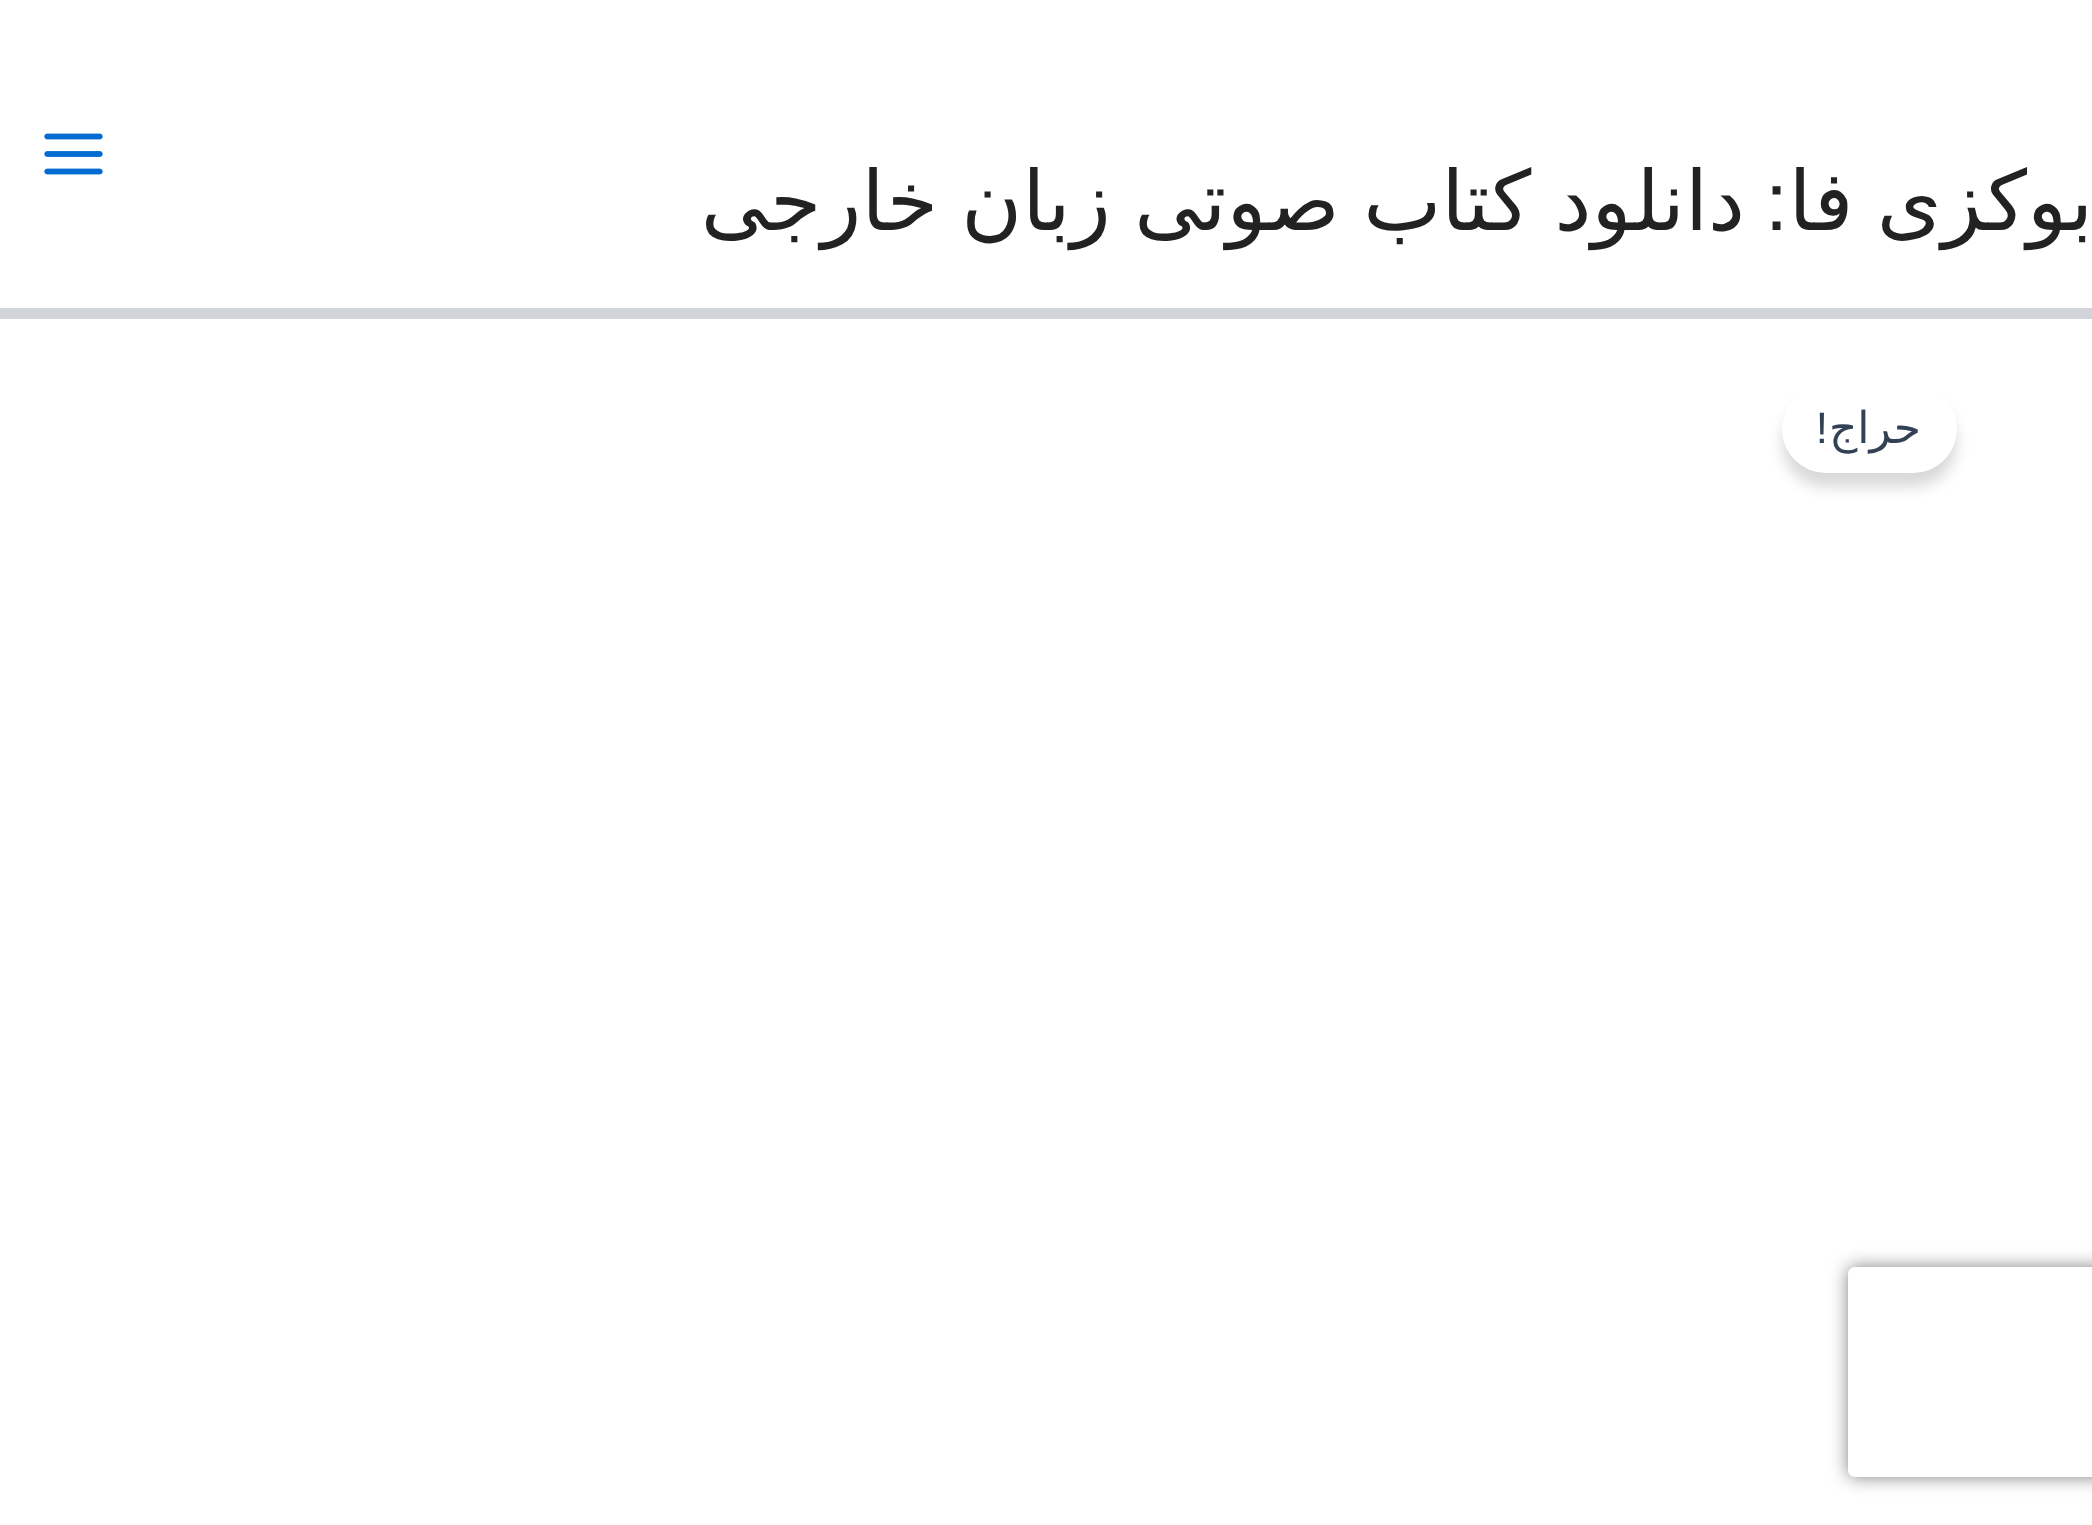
<svg xmlns="http://www.w3.org/2000/svg" width="2092" height="1525">
	<defs>
		<clipPath id="clip1"><path d="M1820 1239H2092V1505H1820ZM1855 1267H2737C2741 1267 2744 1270 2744 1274V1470C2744 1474 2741 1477 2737 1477H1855C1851 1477 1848 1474 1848 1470V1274C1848 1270 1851 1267 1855 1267Z" clip-rule="evenodd" /></clipPath>
	</defs>
	<rect width="100%" height="100%" fill="#FFFFFF" />
	<rect x="0" y="308" width="2092" height="11" fill="#D1D5DB" />
	<image x="44" y="133" width="59" height="42" href="assets/img1.png" />
	<text x="2093" y="230" word-spacing="-3" font-family="DejaVu Sans" font-size="83" direction="rtl" fill="#222222">بوکزی فا</text>
	<text x="1788" y="230" font-family="Liberation Sans" font-size="83" direction="rtl" fill="#222222">:</text>
	<text x="1745" y="230" word-spacing="-3" font-family="DejaVu Sans" font-size="83" direction="rtl" fill="#222222">دانلود کتاب صوتی زبان خارجی</text>
	<rect x="1782" y="399" width="175" height="88" rx="44" fill="#000000" fill-opacity="0.15" filter="blur(7px)" />
	<rect x="1782" y="385" width="175" height="88" rx="44" fill="#FFFFFF" />
	<text x="1921" y="443" font-family="DejaVu Sans" font-size="44" direction="rtl" fill="#334155">حراج</text>
	<text x="1828" y="443" font-family="Liberation Sans" font-size="44" direction="rtl" fill="#334155">!</text>
	<g clip-path="url(#clip1)">
		<rect x="1848" y="1267" width="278" height="210" rx="7" fill="#808080" filter="blur(9px)" />
	</g>
</svg>
